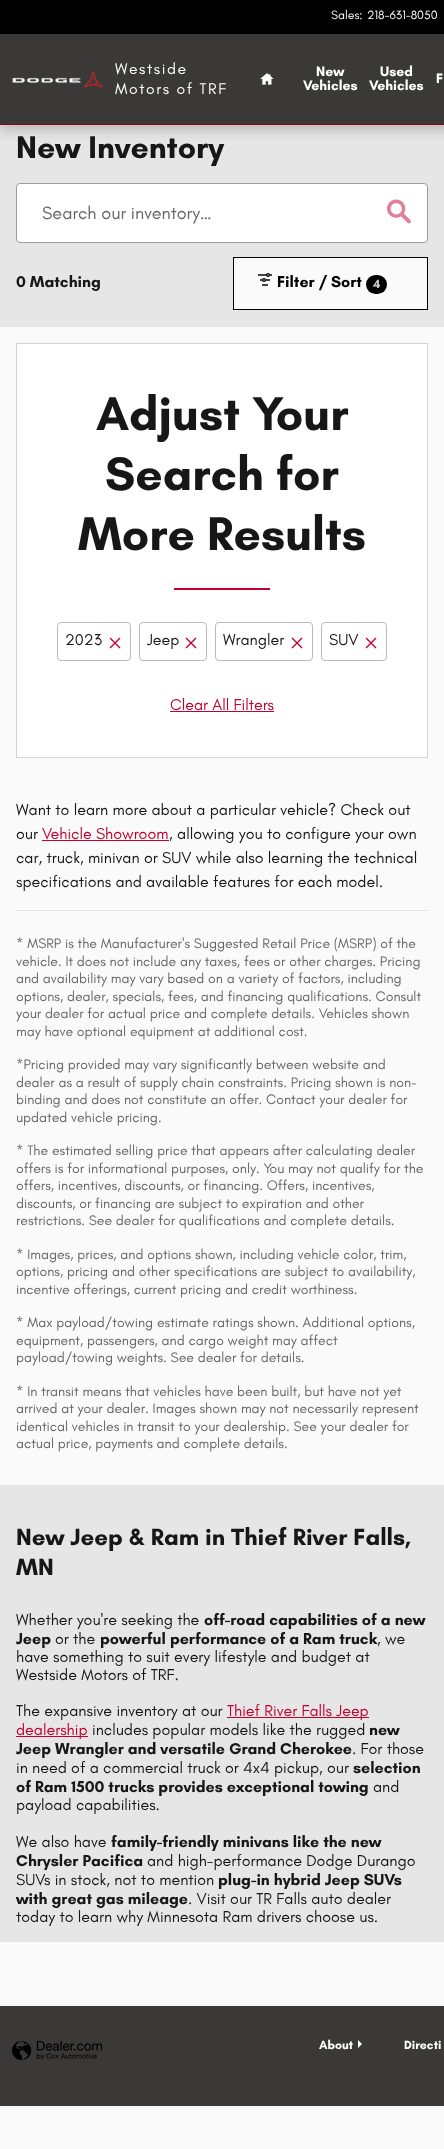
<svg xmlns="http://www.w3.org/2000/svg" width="444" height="2149">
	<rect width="100%" height="100%" fill="#FAFAFA" />
	<rect x="0" y="125" width="444" height="202" fill="#E7E6E6" />
	<rect x="0" y="6" width="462" height="125" fill="#000000" fill-opacity="0.18" filter="blur(6px)" />
	<rect x="0" y="34" width="444" height="90" fill="#3B3838" />
	<rect x="0" y="124" width="444" height="1" fill="#90001D" />
	<rect x="0" y="0" width="444" height="34" fill="#000000" />
	<g font-family="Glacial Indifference" font-size="12.25" fill="#FFFFFF">
		<text x="331" y="19">Sales:</text>
		<text x="367" y="19">218-631-8050</text>
	</g>
	<image x="12" y="71" width="91" height="17" href="assets/img1.png" />
	<g font-family="Glacial Indifference" font-size="15.75" letter-spacing="1.6" fill="#FFFFFF">
		<text x="115" y="74">Westside</text>
		<text x="115" y="94">Motors of TRF</text>
	</g>
	<image x="260" y="73" width="14" height="12" href="assets/img2.png" />
	<g font-family="Glacial Indifference" font-size="14" font-weight="700" fill="#FFFFFF">
		<text x="316" y="76">New</text>
		<text x="303" y="90">Vehicles</text>
		<text x="380" y="76">Used</text>
		<text x="369" y="90">Vehicles</text>
		<text x="436" y="83">F</text>
	</g>
	<text x="16" y="158" font-family="Glacial Indifference" font-size="32" font-weight="700" fill="#171717">New Inventory</text>
	<rect x="16.5" y="183.5" width="411" height="59" rx="3.5" fill="#FFFFFF" stroke="#A09C9C" />
	<text x="42" y="219" font-family="Glacial Indifference" font-size="18" fill="#666666">Search our inventory…</text>
	<image x="387" y="199" width="24" height="25" href="assets/img3.png" />
	<text x="16" y="287" font-family="Glacial Indifference" font-size="16" font-weight="700" fill="#171717">0 Matching</text>
	<rect x="233.5" y="257.5" width="194" height="52" fill="#FAFAFA" stroke="#000000" />
	<image x="258" y="273" width="14" height="13" href="assets/img4.png" />
	<text x="277" y="287" font-family="Glacial Indifference" font-size="16" font-weight="700" fill="#000000">Filter / Sort</text>
	<rect x="366" y="275" width="21" height="19" rx="9.5" fill="#000000" />
	<text x="373" y="288" font-family="Glacial Indifference" font-size="12.25" font-weight="700" fill="#CCCCCC">4</text>
	<rect x="16.5" y="343.5" width="411" height="414" fill="#FFFFFF" stroke="#D4D2D2" />
	<g font-family="Glacial Indifference" font-size="48" font-weight="700" fill="#171717">
		<text x="96" y="430">Adjust Your</text>
		<text x="105" y="490">Search for</text>
		<text x="78" y="550">More Results</text>
	</g>
	<rect x="174" y="588" width="96" height="2" fill="#C3002F" />
	<rect x="57.5" y="622.5" width="73" height="38" rx="3.5" fill="none" stroke="#BCB9B9" />
	<text x="65" y="645" font-family="Glacial Indifference" font-size="16" fill="#171717">2023</text>
	<image x="109" y="637" width="12" height="12" href="assets/img5.png" />
	<rect x="139.5" y="622.5" width="67" height="38" rx="3.5" fill="none" stroke="#BCB9B9" />
	<text x="147" y="645" font-family="Glacial Indifference" font-size="16" fill="#171717">Jeep</text>
	<image x="185" y="637" width="12" height="12" href="assets/img5.png" />
	<rect x="215.5" y="622.5" width="97" height="38" rx="3.5" fill="none" stroke="#BCB9B9" />
	<text x="223" y="645" font-family="Glacial Indifference" font-size="16" fill="#171717">Wrangler</text>
	<image x="291" y="637" width="12" height="12" href="assets/img5.png" />
	<rect x="321.5" y="622.5" width="65" height="38" rx="3.5" fill="none" stroke="#BCB9B9" />
	<text x="329" y="645" font-family="Glacial Indifference" font-size="16" fill="#171717">SUV</text>
	<image x="365" y="637" width="12" height="12" href="assets/img5.png" />
	<text x="170" y="710" font-family="Glacial Indifference" font-size="16" fill="#C3002F">Clear All Filters</text>
	<rect x="170" y="711" width="104" height="1" fill="#C3002F" />
	<g font-family="Glacial Indifference" font-size="16" fill="#171717">
		<text x="16" y="815">Want to learn more about a particular vehicle? Check out</text>
		<text x="16" y="839">our</text>
	</g>
	<text x="42" y="839" font-family="Glacial Indifference" font-size="16" fill="#C3002F">Vehicle Showroom</text>
	<rect x="42" y="840" width="127" height="1" fill="#C3002F" />
	<g font-family="Glacial Indifference" font-size="16" fill="#171717">
		<text x="169" y="839">, allowing you to configure your own</text>
		<text x="16" y="863">car, truck, minivan or SUV while also learning the technical</text>
		<text x="16" y="887">specifications and available features for each model.</text>
	</g>
	<rect x="16" y="910" width="412" height="1" fill="#E1E1E1" />
	<g font-family="Glacial Indifference" font-size="14" fill="#666666">
		<text x="16" y="948">* MSRP is the Manufacturer's Suggested Retail Price (MSRP) of the</text>
		<text x="16" y="966">vehicle. It does not include any taxes, fees or other charges. Pricing</text>
		<text x="16" y="983">and availability may vary based on a variety of factors, including</text>
		<text x="16" y="1001">options, dealer, specials, fees, and financing qualifications. Consult</text>
		<text x="16" y="1018">your dealer for actual price and complete details. Vehicles shown</text>
		<text x="16" y="1036">may have optional equipment at additional cost.</text>
		<text x="16" y="1069">*Pricing provided may vary significantly between website and</text>
		<text x="16" y="1087">dealer as a result of supply chain constraints. Pricing shown is non-</text>
		<text x="16" y="1104">binding and does not constitute an offer. Contact your dealer for</text>
		<text x="16" y="1122">updated vehicle pricing.</text>
		<text x="16" y="1155">* The estimated selling price that appears after calculating dealer</text>
		<text x="16" y="1173">offers is for informational purposes, only. You may not qualify for the</text>
		<text x="16" y="1190">offers, incentives, discounts, or financing. Offers, incentives,</text>
		<text x="16" y="1208">discounts, or financing are subject to expiration and other</text>
		<text x="16" y="1225">restrictions. See dealer for qualifications and complete details.</text>
		<text x="16" y="1259">* Images, prices, and options shown, including vehicle color, trim,</text>
		<text x="16" y="1276">options, pricing and other specifications are subject to availability,</text>
		<text x="16" y="1294">incentive offerings, current pricing and credit worthiness.</text>
		<text x="16" y="1327">* Max payload/towing estimate ratings shown. Additional options,</text>
		<text x="16" y="1345">equipment, passengers, and cargo weight may affect</text>
		<text x="16" y="1362">payload/towing weights. See dealer for details.</text>
		<text x="16" y="1396">* In transit means that vehicles have been built, but have not yet</text>
		<text x="16" y="1413">arrived at your dealer. Images shown may not necessarily represent</text>
		<text x="16" y="1431">identical vehicles in transit to your dealership. See your dealer for</text>
		<text x="16" y="1448">actual price, payments and complete details.</text>
	</g>
	<rect x="0" y="1485" width="444" height="457" fill="#E7E6E6" />
	<g font-family="Glacial Indifference" font-size="24" font-weight="700" fill="#171717">
		<text x="16" y="1545">New Jeep &amp; Ram in Thief River Falls,</text>
		<text x="16" y="1575">MN</text>
	</g>
	<text x="16" y="1625" font-family="Glacial Indifference" font-size="16" fill="#171717">Whether you're seeking the</text>
	<g font-family="Glacial Indifference" font-size="16" font-weight="700" fill="#171717">
		<text x="204" y="1625">off-road capabilities of a new</text>
		<text x="16" y="1644">Jeep</text>
	</g>
	<text x="55" y="1644" font-family="Glacial Indifference" font-size="16" fill="#171717">or the</text>
	<text x="100" y="1644" font-family="Glacial Indifference" font-size="16" font-weight="700" fill="#171717">powerful performance of a Ram truck</text>
	<g font-family="Glacial Indifference" font-size="16" fill="#171717">
		<text x="377" y="1644">, we</text>
		<text x="16" y="1662">have something to suit every lifestyle and budget at</text>
		<text x="16" y="1680">Westside Motors of TRF.</text>
		<text x="16" y="1716">The expansive inventory at our</text>
	</g>
	<rect x="227" y="1717" width="142" height="1" fill="#C3002F" />
	<text x="227" y="1716" font-family="Glacial Indifference" font-size="16" fill="#C3002F">Thief River Falls Jeep</text>
	<rect x="16" y="1736" width="72" height="1" fill="#C3002F" />
	<text x="16" y="1735" font-family="Glacial Indifference" font-size="16" fill="#C3002F">dealership</text>
	<text x="92" y="1735" font-family="Glacial Indifference" font-size="16" fill="#171717">includes popular models like the rugged</text>
	<g font-family="Glacial Indifference" font-size="16" font-weight="700" fill="#171717">
		<text x="369" y="1735">new</text>
		<text x="16" y="1754">Jeep Wrangler and versatile Grand Cherokee</text>
	</g>
	<g font-family="Glacial Indifference" font-size="16" fill="#171717">
		<text x="352" y="1754">. For those</text>
		<text x="16" y="1773">in need of a commercial truck or 4x4 pickup, our</text>
	</g>
	<g font-family="Glacial Indifference" font-size="16" font-weight="700" fill="#171717">
		<text x="353" y="1773">selection</text>
		<text x="16" y="1792">of Ram 1500 trucks provides exceptional towing</text>
	</g>
	<g font-family="Glacial Indifference" font-size="16" fill="#171717">
		<text x="373" y="1792">and</text>
		<text x="16" y="1810">payload capabilities.</text>
		<text x="16" y="1847">We also have</text>
	</g>
	<g font-family="Glacial Indifference" font-size="16" font-weight="700" fill="#171717">
		<text x="111" y="1847">family-friendly minivans like the new</text>
		<text x="16" y="1866">Chrysler Pacifica</text>
	</g>
	<g font-family="Glacial Indifference" font-size="16" fill="#171717">
		<text x="147" y="1866">and high-performance Dodge Durango</text>
		<text x="16" y="1885">SUVs in stock, not to mention</text>
	</g>
	<g font-family="Glacial Indifference" font-size="16" font-weight="700" fill="#171717">
		<text x="218" y="1885">plug-in hybrid Jeep SUVs</text>
		<text x="16" y="1904">with great gas mileage</text>
	</g>
	<g font-family="Glacial Indifference" font-size="16" fill="#171717">
		<text x="188" y="1904">. Visit our TR Falls auto dealer</text>
		<text x="16" y="1922">today to learn why Minnesota Ram drivers choose us.</text>
	</g>
	<rect x="0" y="2006" width="444" height="100" fill="#3B3838" />
	<image x="12" y="2041" width="90" height="19" href="assets/img6.png" />
	<text x="319" y="2049" font-family="Glacial Indifference" font-size="12.25" font-weight="700" fill="#FFFFFF">About</text>
	<path d="M358 2040V2048L362 2044Z" fill="#FFFFFF" />
	<text x="404" y="2049" font-family="Glacial Indifference" font-size="12.25" font-weight="700" fill="#FFFFFF">Directi</text>
</svg>
